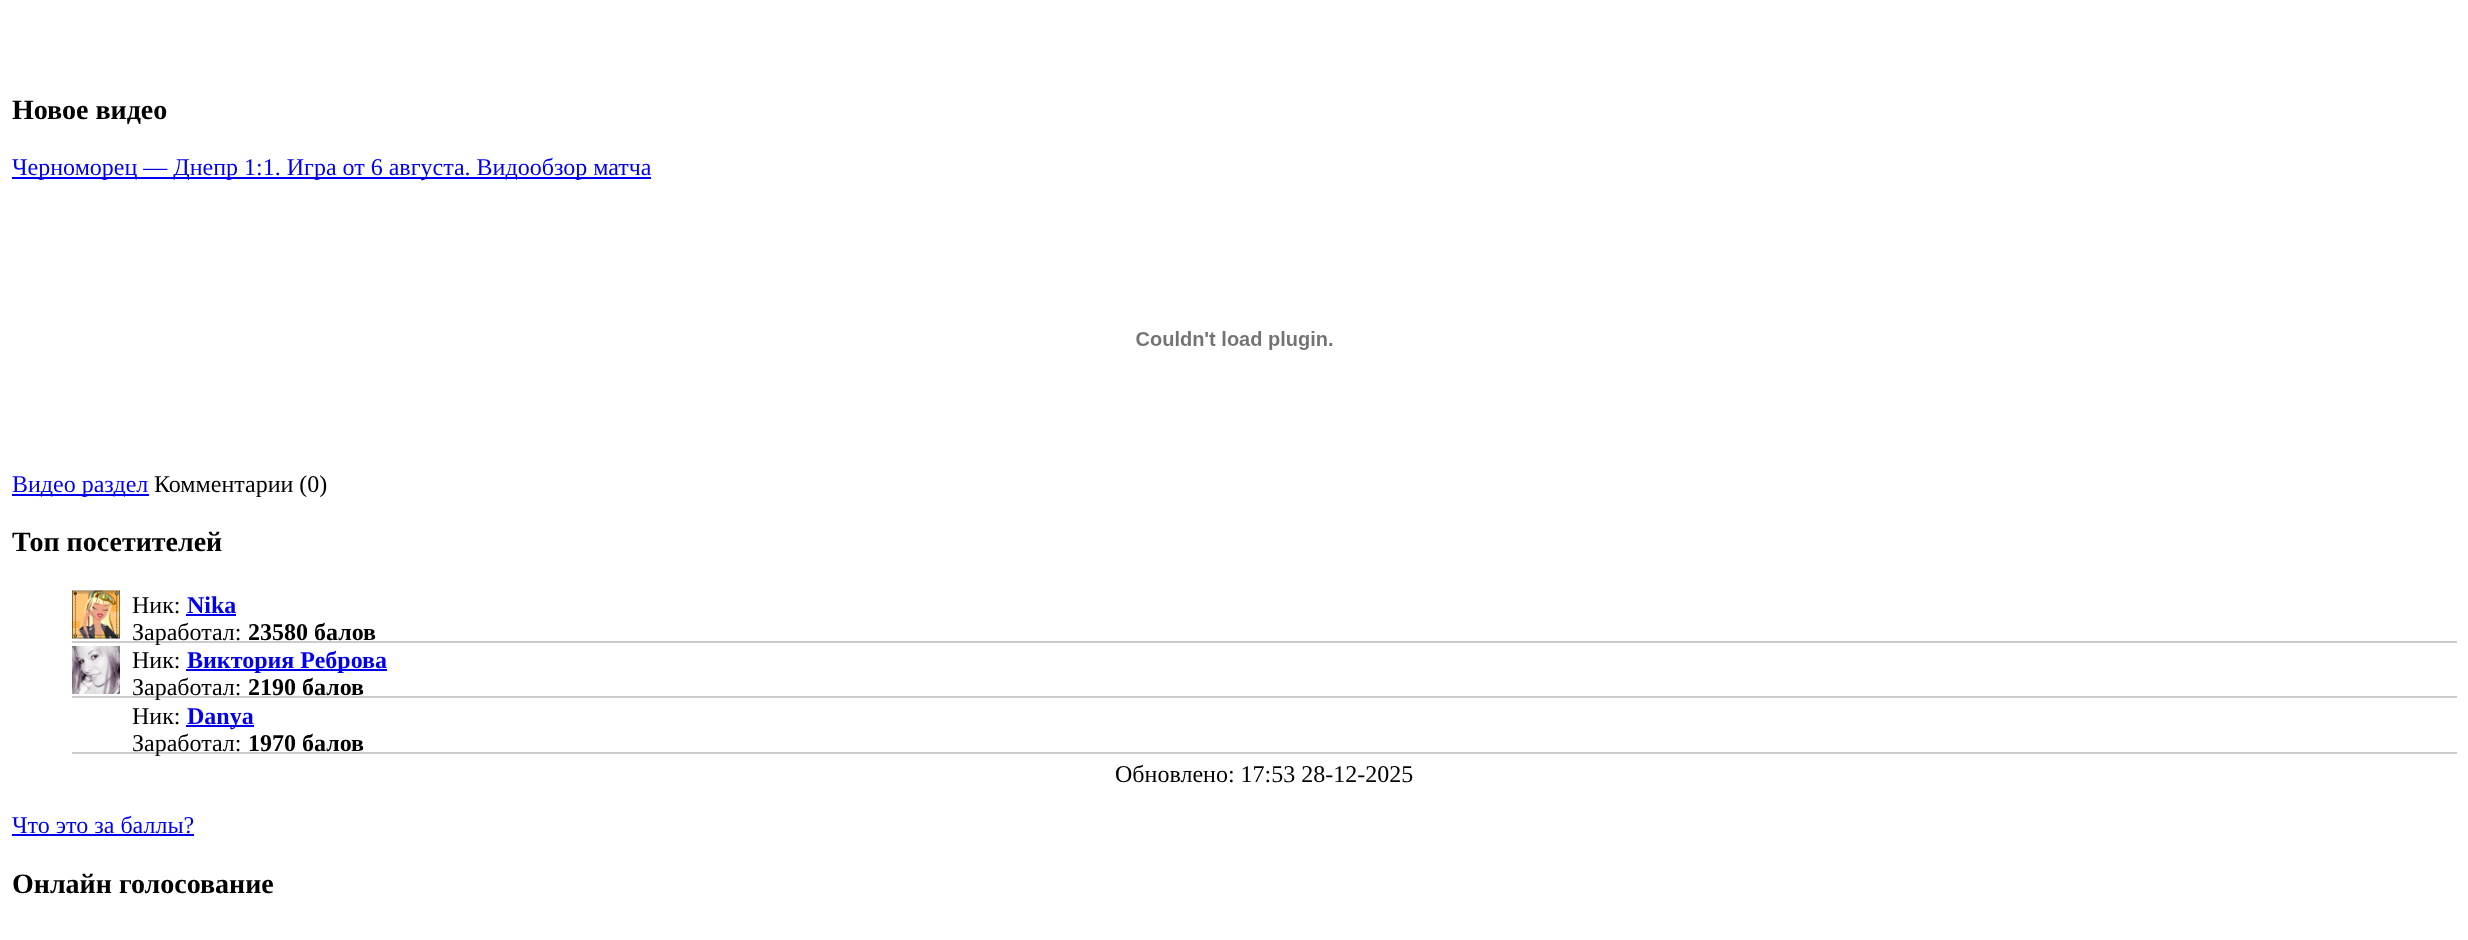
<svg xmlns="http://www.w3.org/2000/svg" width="2468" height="940">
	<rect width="100%" height="100%" fill="#FFFFFF" />
	<text x="12" y="119" font-family="Liberation Serif" font-size="28" font-weight="700" fill="#000000">Новое видео</text>
	<rect x="12" y="177" width="639" height="2" fill="#0000EE" />
	<text x="12" y="175" font-family="Liberation Serif" font-size="24" fill="#0000EE">Черноморец — Днепр 1:1. Игра от 6 августа. Видообзор матча</text>
	<image x="1136" y="331" width="197" height="19" href="assets/img1.png" />
	<rect x="12" y="494" width="137" height="2" fill="#0000EE" />
	<text x="12" y="492" font-family="Liberation Serif" font-size="24" fill="#0000EE">Видео раздел</text>
	<text x="154" y="492" font-family="Liberation Serif" font-size="24" fill="#000000">Комментарии (0)</text>
	<text x="12" y="551" font-family="Liberation Serif" font-size="28" font-weight="700" fill="#000000">Топ посетителей</text>
	<rect x="72" y="641" width="2385" height="2" fill="#CCCCCC" />
	<image x="72" y="590" width="48" height="49" href="assets/img2.png" />
	<text x="132" y="613" font-family="Liberation Serif" font-size="24" fill="#000000">Ник:</text>
	<text x="187" y="613" font-family="Liberation Serif" font-size="24" font-weight="700" fill="#0000EE">Nika</text>
	<rect x="186" y="614" width="50" height="2" fill="#0000EE" />
	<text x="132" y="640" font-family="Liberation Serif" font-size="24" fill="#000000">Заработал:</text>
	<text x="248" y="640" font-family="Liberation Serif" font-size="24" font-weight="700" fill="#000000">23580 балов</text>
	<rect x="72" y="696" width="2385" height="2" fill="#CCCCCC" />
	<image x="72" y="646" width="48" height="48" href="assets/img3.png" />
	<text x="132" y="668" font-family="Liberation Serif" font-size="24" fill="#000000">Ник:</text>
	<rect x="186" y="669" width="201" height="2" fill="#0000EE" />
	<text x="187" y="668" font-family="Liberation Serif" font-size="24" font-weight="700" fill="#0000EE">Виктория Реброва</text>
	<text x="132" y="695" font-family="Liberation Serif" font-size="24" fill="#000000">Заработал:</text>
	<text x="248" y="695" font-family="Liberation Serif" font-size="24" font-weight="700" fill="#000000">2190 балов</text>
	<rect x="72" y="752" width="2385" height="2" fill="#CCCCCC" />
	<text x="132" y="724" font-family="Liberation Serif" font-size="24" fill="#000000">Ник:</text>
	<rect x="186" y="725" width="68" height="2" fill="#0000EE" />
	<text x="187" y="724" font-family="Liberation Serif" font-size="24" font-weight="700" fill="#0000EE">Danya</text>
	<text x="132" y="751" font-family="Liberation Serif" font-size="24" fill="#000000">Заработал:</text>
	<text x="248" y="751" font-family="Liberation Serif" font-size="24" font-weight="700" fill="#000000">1970 балов</text>
	<text x="1115" y="782" font-family="Liberation Serif" font-size="24" fill="#000000">Обновлено: 17:53 28-12-2025</text>
	<text x="12" y="833" font-family="Liberation Serif" font-size="24" fill="#0000EE">Что это за баллы?</text>
	<rect x="12" y="834" width="182" height="2" fill="#0000EE" />
	<text x="12" y="893" font-family="Liberation Serif" font-size="28" font-weight="700" fill="#000000">Онлайн голосование</text>
</svg>
